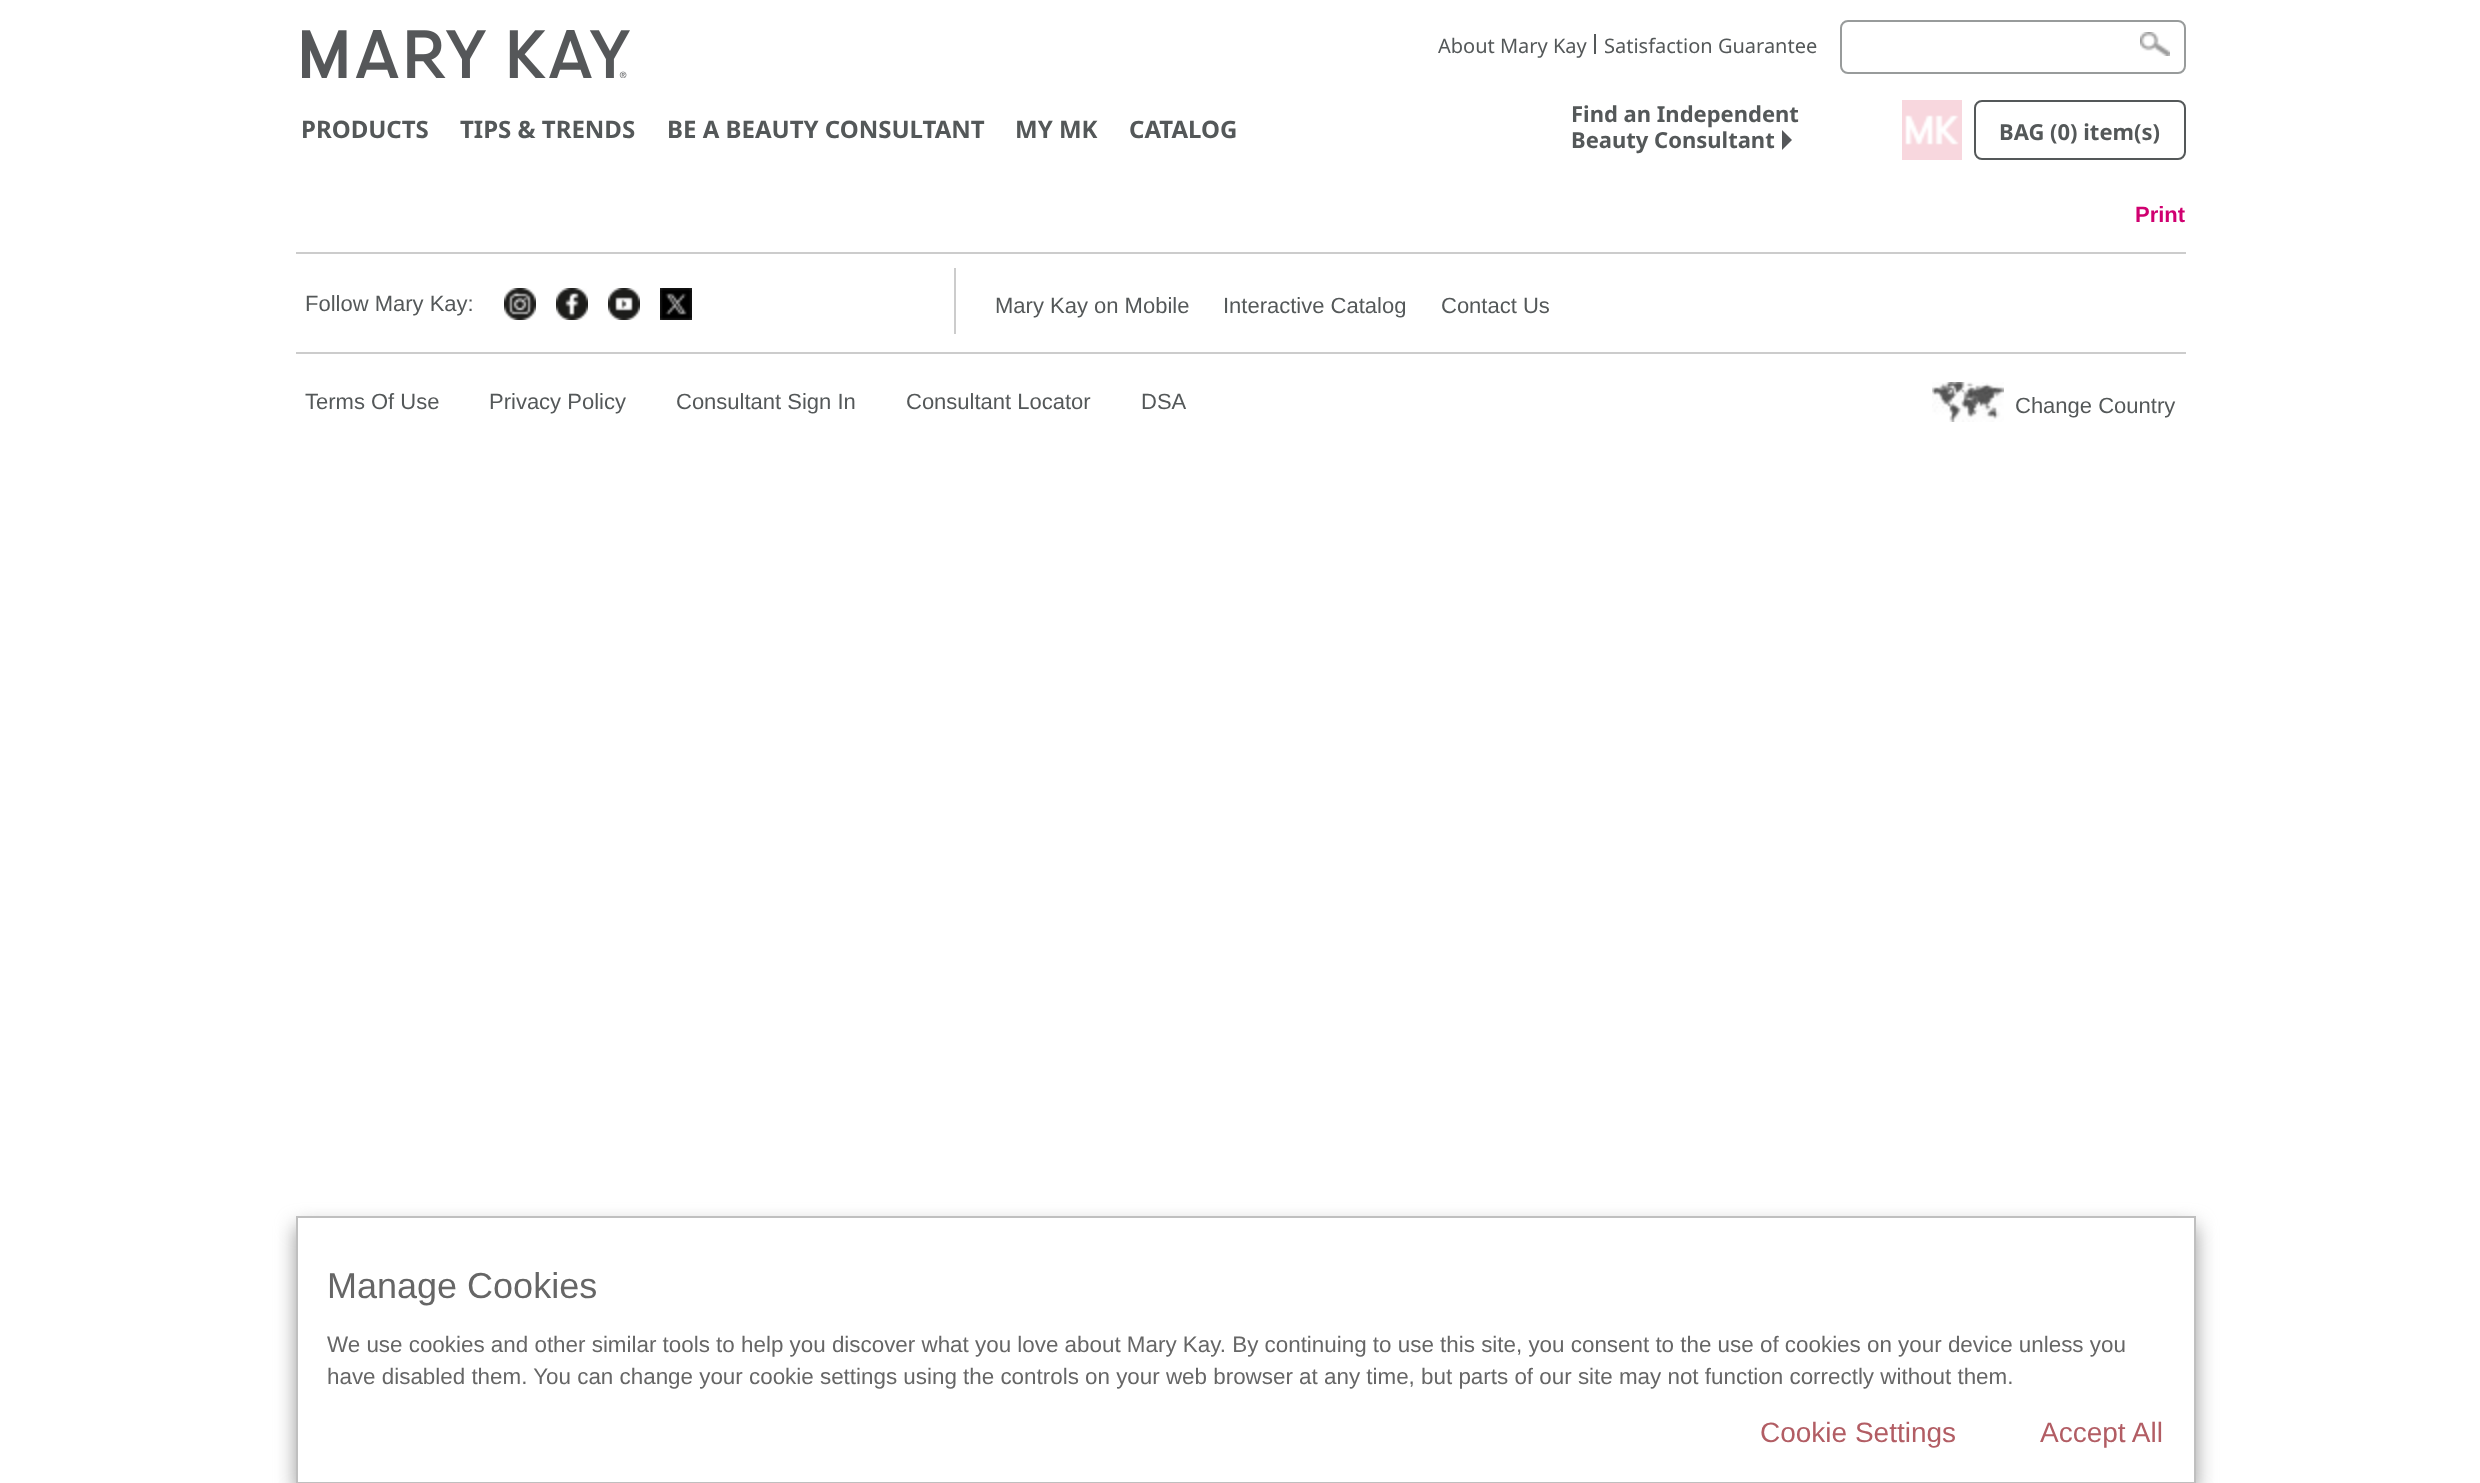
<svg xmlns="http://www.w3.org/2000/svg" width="2480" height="1483">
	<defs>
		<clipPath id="clip1"><path d="M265 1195H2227V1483H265ZM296 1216H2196V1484H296Z" clip-rule="evenodd" /></clipPath>
	</defs>
	<rect width="100%" height="100%" fill="#FFFFFF" />
	<text x="1438" y="53" font-family="Noto Sans" font-size="20" fill="#545859">About Mary Kay</text>
	<rect x="1594" y="34" width="2" height="20" fill="#545859" />
	<text x="1604" y="53" font-family="Noto Sans" font-size="20" fill="#545859">Satisfaction Guarantee</text>
	<image x="2140" y="32" width="30" height="24" href="assets/img1.png" />
	<rect x="1841" y="21" width="344" height="52" rx="7" fill="#FFFFFF" fill-opacity="0.6" stroke="#989B9B" stroke-width="2" />
	<image x="302" y="30" width="328" height="48" href="assets/img2.png" />
	<g font-family="Noto Sans" font-size="24" font-weight="700" fill="#545859">
		<text x="301" y="138">PRODUCTS</text>
		<text x="460" y="138">TIPS &amp; TRENDS</text>
		<text x="667" y="138">BE A BEAUTY CONSULTANT</text>
		<text x="1015" y="138">MY MK</text>
		<text x="1129" y="138">CATALOG</text>
	</g>
	<g font-family="Noto Sans" font-size="22" font-weight="700" fill="#545859">
		<text x="1571" y="122">Find an Independent</text>
		<text x="1571" y="148">Beauty Consultant</text>
	</g>
	<path d="M1782 150V130L1792 140Z" fill="#555759" />
	<image x="1902" y="100" width="60" height="60" href="assets/img3.png" />
	<rect x="1975" y="101" width="210" height="58" rx="7" fill="none" stroke="#545859" stroke-width="2" />
	<text x="1999" y="140" font-family="Noto Sans" font-size="22" font-weight="700" fill="#545859">BAG (0) item(s)</text>
	<text x="2135" y="222" font-family="Liberation Sans" font-size="22" font-weight="700" fill="#D00070">Print</text>
	<rect x="296" y="252" width="1890" height="2" fill="#CCCCCC" />
	<rect x="296" y="352" width="1890" height="2" fill="#CCCCCC" />
	<rect x="954" y="268" width="2" height="66" fill="#CCCCCC" />
	<text x="305" y="311" font-family="Liberation Sans" font-size="22" fill="#545859">Follow Mary Kay:</text>
	<image x="504" y="288" width="32" height="32" href="assets/img4.png" />
	<image x="556" y="288" width="32" height="32" href="assets/img5.png" />
	<image x="608" y="288" width="32" height="32" href="assets/img6.png" />
	<image x="660" y="288" width="32" height="32" href="assets/img7.png" />
	<g font-family="Liberation Sans" font-size="22" fill="#545859">
		<text x="995" y="313">Mary Kay on Mobile</text>
		<text x="1223" y="313">Interactive Catalog</text>
		<text x="1441" y="313">Contact Us</text>
		<text x="305" y="409">Terms Of Use</text>
		<text x="489" y="409">Privacy Policy</text>
		<text x="676" y="409">Consultant Sign In</text>
		<text x="906" y="409">Consultant Locator</text>
		<text x="1141" y="409">DSA</text>
	</g>
	<image x="1932" y="382" width="72" height="40" href="assets/img8.png" />
	<text x="2015" y="413" font-family="Liberation Sans" font-size="22" fill="#545859">Change Country</text>
	<g clip-path="url(#clip1)">
		<rect x="296" y="1226" width="1900" height="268" fill="#999999" filter="blur(10px)" />
	</g>
	<rect x="297" y="1217" width="1898" height="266" fill="none" stroke="#BFBFBF" stroke-width="2" />
	<text x="327" y="1298" font-family="Liberation Sans" font-size="36" fill="#666666">Manage Cookies</text>
	<g font-family="Liberation Sans" font-size="22.4" fill="#666666">
		<text x="327" y="1352">We use cookies and other similar tools to help you discover what you love about Mary Kay. By continuing to use this site, you consent to the use of cookies on your device unless you</text>
		<text x="327" y="1384">have disabled them. You can change your cookie settings using the controls on your web browser at any time, but parts of our site may not function correctly without them.</text>
	</g>
	<g font-family="Liberation Sans" font-size="28" fill="#B25D64">
		<text x="1760" y="1442">Cookie Settings</text>
		<text x="2040" y="1442">Accept All</text>
	</g>
</svg>
